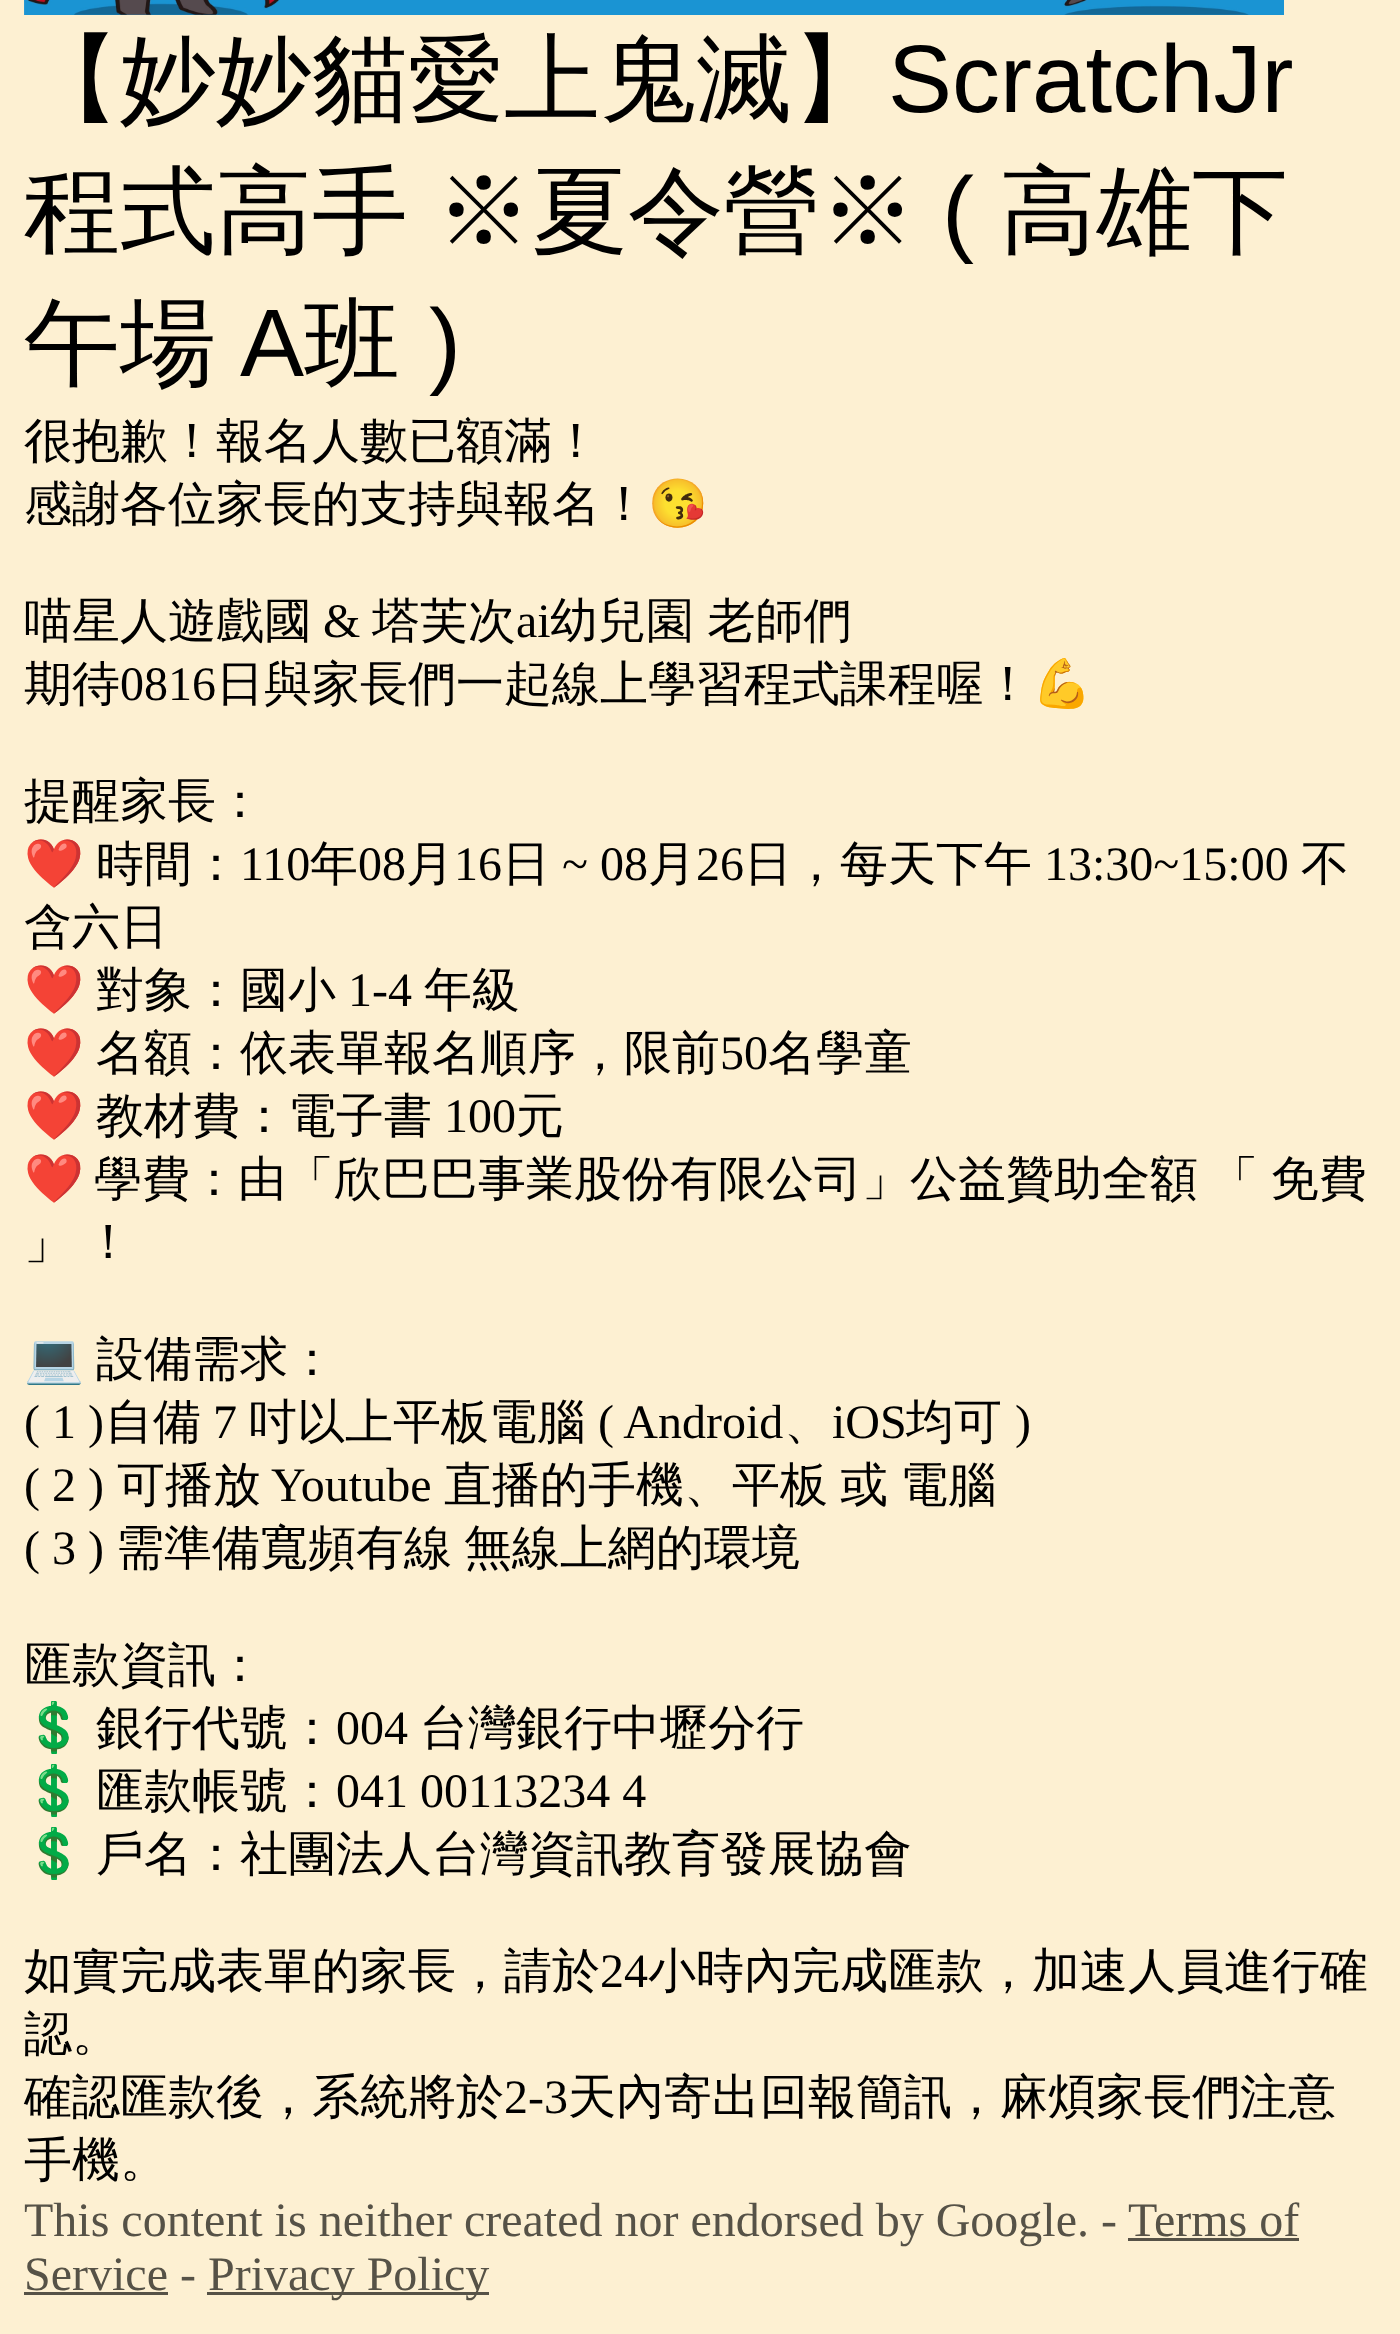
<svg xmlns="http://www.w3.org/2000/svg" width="1400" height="2334">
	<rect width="100%" height="100%" fill="#FDF0D2" />
	<image x="24" y="0" width="1260" height="15" href="assets/img1.png" />
	<text x="24" y="112" font-family="WenQuanYi Zen Hei" font-size="96" font-weight="500" fill="#000000">【妙妙貓愛上鬼滅】</text>
	<text x="888" y="112" font-family="Liberation Sans" font-size="96" fill="#000000">ScratchJr</text>
	<text x="24" y="244" word-spacing="-1" font-family="WenQuanYi Zen Hei" font-size="96" font-weight="500" fill="#000000">程式高手 ※夏令營※</text>
	<text x="942" y="244" font-family="Liberation Sans" font-size="96" fill="#000000">(</text>
	<g font-family="WenQuanYi Zen Hei" font-size="96" font-weight="500" fill="#000000">
		<text x="1000" y="244">高雄下</text>
		<text x="24" y="376">午場</text>
	</g>
	<text x="240" y="376" font-family="Liberation Sans" font-size="96" fill="#000000">A</text>
	<text x="304" y="376" font-family="WenQuanYi Zen Hei" font-size="96" font-weight="500" fill="#000000">班</text>
	<text x="429" y="376" font-family="Liberation Sans" font-size="96" fill="#000000">)</text>
	<g font-family="WenQuanYi Zen Hei" font-size="48" font-weight="500" fill="#000000">
		<text x="24" y="457">很抱歉！報名人數已額滿！</text>
		<text x="24" y="520">感謝各位家長的支持與報名！</text>
	</g>
	<text x="648" y="520" font-family="Noto Color Emoji" font-size="48" fill="#000000">😘</text>
	<text x="24" y="637" font-family="WenQuanYi Zen Hei" font-size="48" font-weight="500" fill="#000000">喵星人遊戲國</text>
	<text x="323" y="637" font-family="Liberation Serif" font-size="48" fill="#000000">&amp;</text>
	<text x="372" y="637" font-family="WenQuanYi Zen Hei" font-size="48" font-weight="500" fill="#000000">塔芙次</text>
	<text x="516" y="637" font-family="Liberation Serif" font-size="48" fill="#000000">ai</text>
	<g font-family="WenQuanYi Zen Hei" font-size="48" font-weight="500" fill="#000000">
		<text x="550" y="637" word-spacing="-1">幼兒園 老師們</text>
		<text x="24" y="700">期待</text>
	</g>
	<text x="120" y="700" font-family="Liberation Serif" font-size="48" fill="#000000">0816</text>
	<text x="216" y="700" font-family="WenQuanYi Zen Hei" font-size="48" font-weight="500" fill="#000000">日與家長們一起線上學習程式課程喔！</text>
	<text x="1032" y="700" font-family="Noto Color Emoji" font-size="48" fill="#000000">💪</text>
	<text x="24" y="817" font-family="WenQuanYi Zen Hei" font-size="48" font-weight="500" fill="#000000">提醒家長：</text>
	<text x="24" y="880" font-family="Noto Color Emoji" font-size="48" fill="#000000">❤️</text>
	<text x="96" y="880" font-family="WenQuanYi Zen Hei" font-size="48" font-weight="500" fill="#000000">時間：</text>
	<text x="240" y="880" font-family="Liberation Serif" font-size="48" fill="#000000">110</text>
	<text x="310" y="880" font-family="WenQuanYi Zen Hei" font-size="48" font-weight="500" fill="#000000">年</text>
	<text x="358" y="880" font-family="Liberation Serif" font-size="48" fill="#000000">08</text>
	<text x="406" y="880" font-family="WenQuanYi Zen Hei" font-size="48" font-weight="500" fill="#000000">月</text>
	<text x="454" y="880" font-family="Liberation Serif" font-size="48" fill="#000000">16</text>
	<text x="502" y="880" font-family="WenQuanYi Zen Hei" font-size="48" font-weight="500" fill="#000000">日</text>
	<text x="562" y="880" font-family="Liberation Serif" font-size="48" fill="#000000">~ 08</text>
	<text x="648" y="880" font-family="WenQuanYi Zen Hei" font-size="48" font-weight="500" fill="#000000">月</text>
	<text x="696" y="880" font-family="Liberation Serif" font-size="48" fill="#000000">26</text>
	<text x="744" y="880" font-family="WenQuanYi Zen Hei" font-size="48" font-weight="500" fill="#000000">日，每天下午</text>
	<text x="1044" y="880" font-family="Liberation Serif" font-size="48" fill="#000000">13:30~15:00</text>
	<g font-family="WenQuanYi Zen Hei" font-size="48" font-weight="500" fill="#000000">
		<text x="1301" y="880">不</text>
		<text x="24" y="943">含六日</text>
	</g>
	<text x="24" y="1006" font-family="Noto Color Emoji" font-size="48" fill="#000000">❤️</text>
	<text x="96" y="1006" font-family="WenQuanYi Zen Hei" font-size="48" font-weight="500" fill="#000000">對象：國小</text>
	<text x="348" y="1006" font-family="Liberation Serif" font-size="48" fill="#000000">1-4</text>
	<text x="424" y="1006" font-family="WenQuanYi Zen Hei" font-size="48" font-weight="500" fill="#000000">年級</text>
	<text x="24" y="1069" font-family="Noto Color Emoji" font-size="48" fill="#000000">❤️</text>
	<text x="96" y="1069" font-family="WenQuanYi Zen Hei" font-size="48" font-weight="500" fill="#000000">名額：依表單報名順序，限前</text>
	<text x="720" y="1069" font-family="Liberation Serif" font-size="48" fill="#000000">50</text>
	<text x="768" y="1069" font-family="WenQuanYi Zen Hei" font-size="48" font-weight="500" fill="#000000">名學童</text>
	<text x="24" y="1132" font-family="Noto Color Emoji" font-size="48" fill="#000000">❤️</text>
	<text x="96" y="1132" font-family="WenQuanYi Zen Hei" font-size="48" font-weight="500" fill="#000000">教材費：電子書</text>
	<text x="444" y="1132" font-family="Liberation Serif" font-size="48" fill="#000000">100</text>
	<text x="516" y="1132" font-family="WenQuanYi Zen Hei" font-size="48" font-weight="500" fill="#000000">元</text>
	<text x="24" y="1195" font-family="Noto Color Emoji" font-size="48" fill="#000000">❤️</text>
	<g font-family="WenQuanYi Zen Hei" font-size="48" font-weight="500" fill="#000000">
		<text x="94" y="1195" word-spacing="-2">學費：由「欣巴巴事業股份有限公司」公益贊助全額 「 免費</text>
		<text x="24" y="1258" word-spacing="-2">」 ！</text>
	</g>
	<text x="24" y="1375" font-family="Noto Color Emoji" font-size="48" fill="#000000">💻</text>
	<text x="96" y="1375" font-family="WenQuanYi Zen Hei" font-size="48" font-weight="500" fill="#000000">設備需求：</text>
	<text x="24" y="1438" font-family="Liberation Serif" font-size="48" fill="#000000">( 1 )</text>
	<text x="105" y="1438" font-family="WenQuanYi Zen Hei" font-size="48" font-weight="500" fill="#000000">自備</text>
	<text x="213" y="1438" font-family="Liberation Serif" font-size="48" fill="#000000">7</text>
	<text x="249" y="1438" font-family="WenQuanYi Zen Hei" font-size="48" font-weight="500" fill="#000000">吋以上平板電腦</text>
	<text x="598" y="1438" font-family="Liberation Serif" font-size="48" fill="#000000">( Android</text>
	<text x="784" y="1438" font-family="WenQuanYi Zen Hei" font-size="48" font-weight="500" fill="#000000">、</text>
	<text x="832" y="1438" font-family="Liberation Serif" font-size="48" fill="#000000">iOS</text>
	<text x="906" y="1438" font-family="WenQuanYi Zen Hei" font-size="48" font-weight="500" fill="#000000">均可</text>
	<g font-family="Liberation Serif" font-size="48" fill="#000000">
		<text x="1015" y="1438">)</text>
		<text x="24" y="1501">( 2 )</text>
	</g>
	<text x="117" y="1501" font-family="WenQuanYi Zen Hei" font-size="48" font-weight="500" fill="#000000">可播放</text>
	<text x="271" y="1501" font-family="Liberation Serif" font-size="48" fill="#000000">Youtube</text>
	<g font-family="WenQuanYi Zen Hei" font-size="48" font-weight="500" fill="#000000">
		<text x="444" y="1501">直播的手機、平板</text>
		<text x="840" y="1501">或</text>
		<text x="900" y="1501">電腦</text>
	</g>
	<text x="24" y="1564" font-family="Liberation Serif" font-size="48" fill="#000000">( 3 )</text>
	<g font-family="WenQuanYi Zen Hei" font-size="48" font-weight="500" fill="#000000">
		<text x="116" y="1564">需準備寬頻有線</text>
		<text x="464" y="1564">無線上網的環境</text>
		<text x="24" y="1681">匯款資訊：</text>
	</g>
	<text x="24" y="1744" font-family="Noto Color Emoji" font-size="48" fill="#000000">💲</text>
	<text x="96" y="1744" font-family="WenQuanYi Zen Hei" font-size="48" font-weight="500" fill="#000000">銀行代號：</text>
	<text x="336" y="1744" font-family="Liberation Serif" font-size="48" fill="#000000">004</text>
	<text x="420" y="1744" font-family="WenQuanYi Zen Hei" font-size="48" font-weight="500" fill="#000000">台灣銀行中壢分行</text>
	<text x="24" y="1807" font-family="Noto Color Emoji" font-size="48" fill="#000000">💲</text>
	<text x="96" y="1807" font-family="WenQuanYi Zen Hei" font-size="48" font-weight="500" fill="#000000">匯款帳號：</text>
	<text x="336" y="1807" font-family="Liberation Serif" font-size="48" fill="#000000">041 00113234 4</text>
	<text x="24" y="1870" font-family="Noto Color Emoji" font-size="48" fill="#000000">💲</text>
	<g font-family="WenQuanYi Zen Hei" font-size="48" font-weight="500" fill="#000000">
		<text x="96" y="1870">戶名：社團法人台灣資訊教育發展協會</text>
		<text x="24" y="1987">如實完成表單的家長，請於</text>
	</g>
	<text x="600" y="1987" font-family="Liberation Serif" font-size="48" fill="#000000">24</text>
	<g font-family="WenQuanYi Zen Hei" font-size="48" font-weight="500" fill="#000000">
		<text x="648" y="1987">小時內完成匯款，加速人員進行確</text>
		<text x="24" y="2050">認。</text>
		<text x="24" y="2113">確認匯款後，系統將於</text>
	</g>
	<text x="504" y="2113" font-family="Liberation Serif" font-size="48" fill="#000000">2-3</text>
	<g font-family="WenQuanYi Zen Hei" font-size="48" font-weight="500" fill="#000000">
		<text x="568" y="2113">天內寄出回報簡訊，麻煩家長們注意</text>
		<text x="24" y="2176">手機。</text>
	</g>
	<g font-family="Liberation Serif" font-size="48" fill="#565247">
		<text x="24" y="2236">This content is neither created nor endorsed by Google. -</text>
		<text x="1128" y="2236">Terms of</text>
	</g>
	<rect x="1128" y="2238" width="171" height="3" fill="#565247" />
	<text x="24" y="2290" font-family="Liberation Serif" font-size="48" fill="#565247">Service -</text>
	<rect x="24" y="2292" width="144" height="3" fill="#565247" />
	<rect x="207" y="2292" width="282" height="3" fill="#565247" />
	<text x="208" y="2290" font-family="Liberation Serif" font-size="48" fill="#565247">Privacy Policy</text>
</svg>
